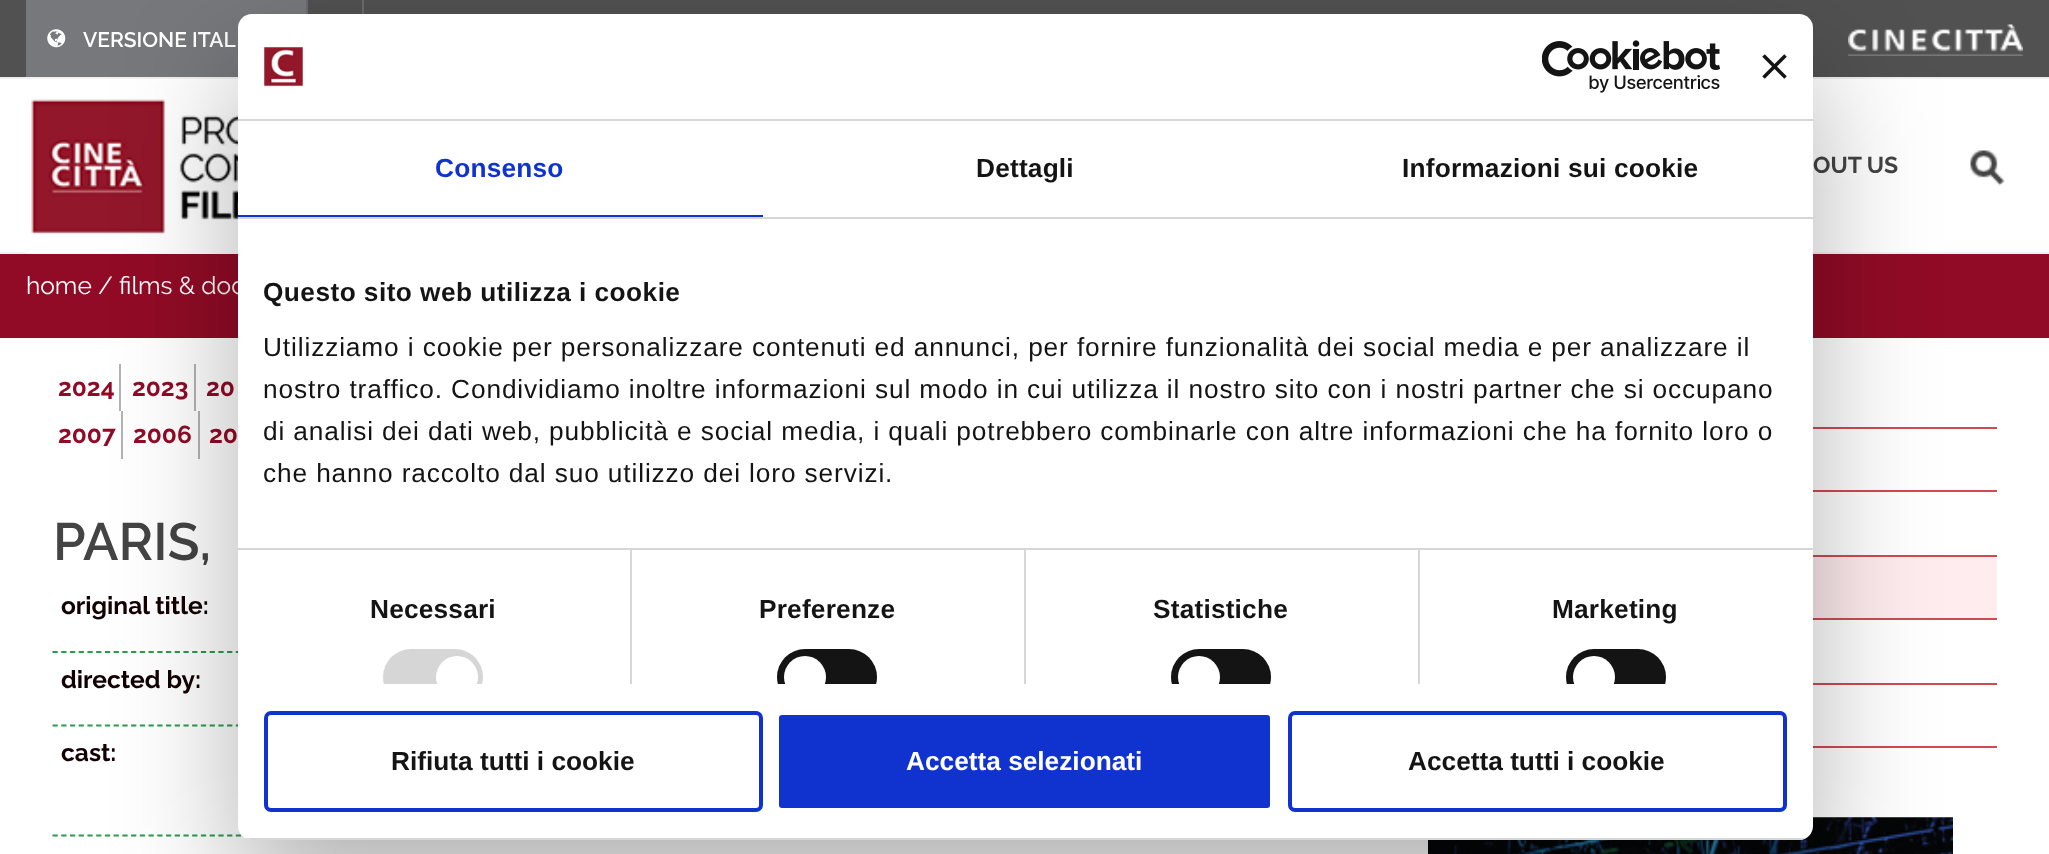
<svg xmlns="http://www.w3.org/2000/svg" width="2049" height="854">
	<defs>
		<clipPath id="clip1"><rect x="238" y="219" width="1575" height="465" /></clipPath>
		<clipPath id="clip2"><rect x="238" y="14" width="1575" height="826" rx="14" /></clipPath>
	</defs>
	<rect width="100%" height="100%" fill="#FFFFFF" />
	<rect x="0" y="0" width="2049" height="77" fill="#515151" />
	<rect x="0" y="77" width="2049" height="2" fill="#EEEEEE" />
	<rect x="306" y="0" width="2" height="14" fill="#6A6B6D" />
	<rect x="362" y="0" width="2" height="14" fill="#6A6B6D" />
	<rect x="26" y="0" width="280" height="77" fill="#77787C" />
	<image x="47" y="29" width="19" height="19" href="assets/img1.png" />
	<text x="83" y="47" font-family="Raleway" font-size="21" font-weight="600" fill="#FFFFFF">VERSIONE ITAL</text>
	<image x="1848" y="24" width="175" height="32" href="assets/img2.png" />
	<rect x="0" y="252" width="2049" height="2" fill="#F5F5F5" />
	<image x="26" y="78" width="212" height="176" href="assets/img3.png" />
	<text x="1813" y="173" font-family="Raleway" font-size="23" font-weight="700" fill="#444444">OUT US</text>
	<image x="1970" y="150" width="35" height="36" href="assets/img4.png" />
	<rect x="0" y="254" width="2049" height="84" fill="#910B26" />
	<text x="26" y="294" font-family="Raleway" font-size="24.5" fill="#FFFFFF">home / films &amp; doc</text>
	<rect x="119" y="364" width="2" height="47" fill="#B3B3B3" />
	<text x="58" y="396" font-family="Raleway" font-size="24.5" font-weight="700" fill="#910B26">2024</text>
	<rect x="194" y="364" width="2" height="47" fill="#B3B3B3" />
	<g font-family="Raleway" font-size="24.5" font-weight="700" fill="#910B26">
		<text x="132" y="396">2023</text>
		<text x="206" y="396">20</text>
	</g>
	<rect x="121" y="411" width="2" height="48" fill="#B3B3B3" />
	<text x="58" y="443" font-family="Raleway" font-size="24.5" font-weight="700" fill="#910B26">2007</text>
	<rect x="198" y="411" width="2" height="48" fill="#B3B3B3" />
	<g font-family="Raleway" font-size="24.5" font-weight="700" fill="#910B26">
		<text x="133" y="443">2006</text>
		<text x="209" y="443">20</text>
	</g>
	<text x="53" y="560" font-family="Raleway" font-size="52.5" font-weight="600" fill="#444444">PARIS,</text>
	<path d="M52.5 652H1332" fill="none" stroke="#2A9C4E" stroke-width="1.8" stroke-dasharray="5.25 3.48" />
	<text x="61" y="614" font-family="Raleway" font-size="24.5" font-weight="700" fill="#130001">original title:</text>
	<path d="M52.5 725.5H1332" fill="none" stroke="#2A9C4E" stroke-width="1.8" stroke-dasharray="5.25 3.48" />
	<text x="61" y="688" font-family="Raleway" font-size="24.5" font-weight="700" fill="#130001">directed by:</text>
	<path d="M52.5 835.5H1332" fill="none" stroke="#2A9C4E" stroke-width="1.8" stroke-dasharray="5.25 3.48" />
	<text x="61" y="761" font-family="Raleway" font-size="24.5" font-weight="700" fill="#130001">cast:</text>
	<rect x="1813" y="427" width="184" height="2" fill="#CD4C52" />
	<rect x="1813" y="490" width="184" height="2" fill="#CD4C52" />
	<rect x="1813" y="555" width="184" height="2" fill="#CD4C52" />
	<rect x="1813" y="618" width="184" height="2" fill="#CD4C52" />
	<rect x="1813" y="557" width="184" height="61" fill="#FFECEF" />
	<rect x="1813" y="683" width="184" height="2" fill="#CD4C52" />
	<rect x="1813" y="746" width="184" height="2" fill="#CD4C52" />
	<image x="1428" y="817" width="525" height="37" href="assets/img5.png" />
	<rect x="238" y="70" width="1575" height="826" rx="14" fill="#000000" fill-opacity="0.3" filter="blur(59.5px)" />
	<rect x="238" y="14" width="1575" height="826" rx="14" fill="#FFFFFF" />
	<rect x="238" y="119" width="1575" height="2" fill="#D6D6D6" />
	<image x="264" y="47" width="39" height="40" href="assets/img6.png" />
	<image x="1542" y="40" width="178" height="53" href="assets/img7.png" />
	<image x="1762" y="54" width="25" height="25" href="assets/img8.png" />
	<rect x="238" y="217" width="1575" height="2" fill="#D6D6D6" />
	<rect x="238" y="215" width="525" height="2" fill="#1032CF" />
	<text x="435" y="177" font-family="Liberation Sans" font-size="26.25" font-weight="700" letter-spacing="0.2" fill="#1032CF">Consenso</text>
	<g font-family="Liberation Sans" font-size="26.25" font-weight="700" letter-spacing="0.2" fill="#141414">
		<text x="976" y="177">Dettagli</text>
		<text x="1402" y="177">Informazioni sui cookie</text>
	</g>
	<rect x="238" y="548" width="1575" height="2" fill="#D6D6D6" />
	<text x="263" y="301" font-family="Liberation Sans" font-size="26.25" font-weight="700" letter-spacing="0.45" fill="#141414">Questo sito web utilizza i cookie</text>
	<g font-family="Liberation Sans" font-size="26.25" letter-spacing="0.88" fill="#141414">
		<text x="263" y="356">Utilizziamo i cookie per personalizzare contenuti ed annunci, per fornire funzionalità dei social media e per analizzare il</text>
		<text x="263" y="398">nostro traffico. Condividiamo inoltre informazioni sul modo in cui utilizza il nostro sito con i nostri partner che si occupano</text>
		<text x="263" y="440">di analisi dei dati web, pubblicità e social media, i quali potrebbero combinarle con altre informazioni che ha fornito loro o</text>
		<text x="263" y="482">che hanno raccolto dal suo utilizzo dei loro servizi.</text>
	</g>
	<rect x="630" y="550" width="2" height="134" fill="#D6D6D6" />
	<text x="370" y="618" font-family="Liberation Sans" font-size="26.25" font-weight="700" letter-spacing="0.2" fill="#141414">Necessari</text>
	<g clip-path="url(#clip1)">
		<rect x="383" y="649" width="100" height="56" rx="28" fill="#D6D6D6" />
		<circle cx="457" cy="677" r="21" fill="#FFFFFF" />
	</g>
	<rect x="1024" y="550" width="2" height="134" fill="#D6D6D6" />
	<text x="759" y="618" font-family="Liberation Sans" font-size="26.25" font-weight="700" letter-spacing="0.2" fill="#141414">Preferenze</text>
	<g clip-path="url(#clip1)">
		<rect x="777" y="649" width="100" height="56" rx="28" fill="#141414" />
		<circle cx="805" cy="677" r="21" fill="#FFFFFF" />
	</g>
	<rect x="1418" y="550" width="2" height="134" fill="#D6D6D6" />
	<text x="1153" y="618" font-family="Liberation Sans" font-size="26.25" font-weight="700" letter-spacing="0.2" fill="#141414">Statistiche</text>
	<g clip-path="url(#clip1)">
		<rect x="1171" y="649" width="100" height="56" rx="28" fill="#141414" />
		<circle cx="1199" cy="677" r="21" fill="#FFFFFF" />
	</g>
	<text x="1552" y="618" font-family="Liberation Sans" font-size="26.25" font-weight="700" letter-spacing="0.2" fill="#141414">Marketing</text>
	<g clip-path="url(#clip1)">
		<rect x="1566" y="649" width="100" height="56" rx="28" fill="#141414" />
		<circle cx="1594" cy="677" r="21" fill="#FFFFFF" />
	</g>
	<g clip-path="url(#clip2)">
		<rect x="238" y="838" width="1575" height="2" fill="#D6D6D6" />
	</g>
	<rect x="266" y="713" width="495" height="97" rx="5" fill="none" stroke="#1032CF" stroke-width="4" />
	<text x="391" y="770" font-family="Liberation Sans" font-size="26.25" font-weight="700" fill="#141414">Rifiuta tutti i cookie</text>
	<rect x="777" y="713" width="495" height="97" rx="5" fill="#1032CF" stroke="#FFFFFF" stroke-width="4" />
	<text x="906" y="770" font-family="Liberation Sans" font-size="26.25" font-weight="700" fill="#FFFFFF">Accetta selezionati</text>
	<rect x="1290" y="713" width="495" height="97" rx="5" fill="none" stroke="#1032CF" stroke-width="4" />
	<text x="1408" y="770" font-family="Liberation Sans" font-size="26.25" font-weight="700" fill="#141414">Accetta tutti i cookie</text>
</svg>
